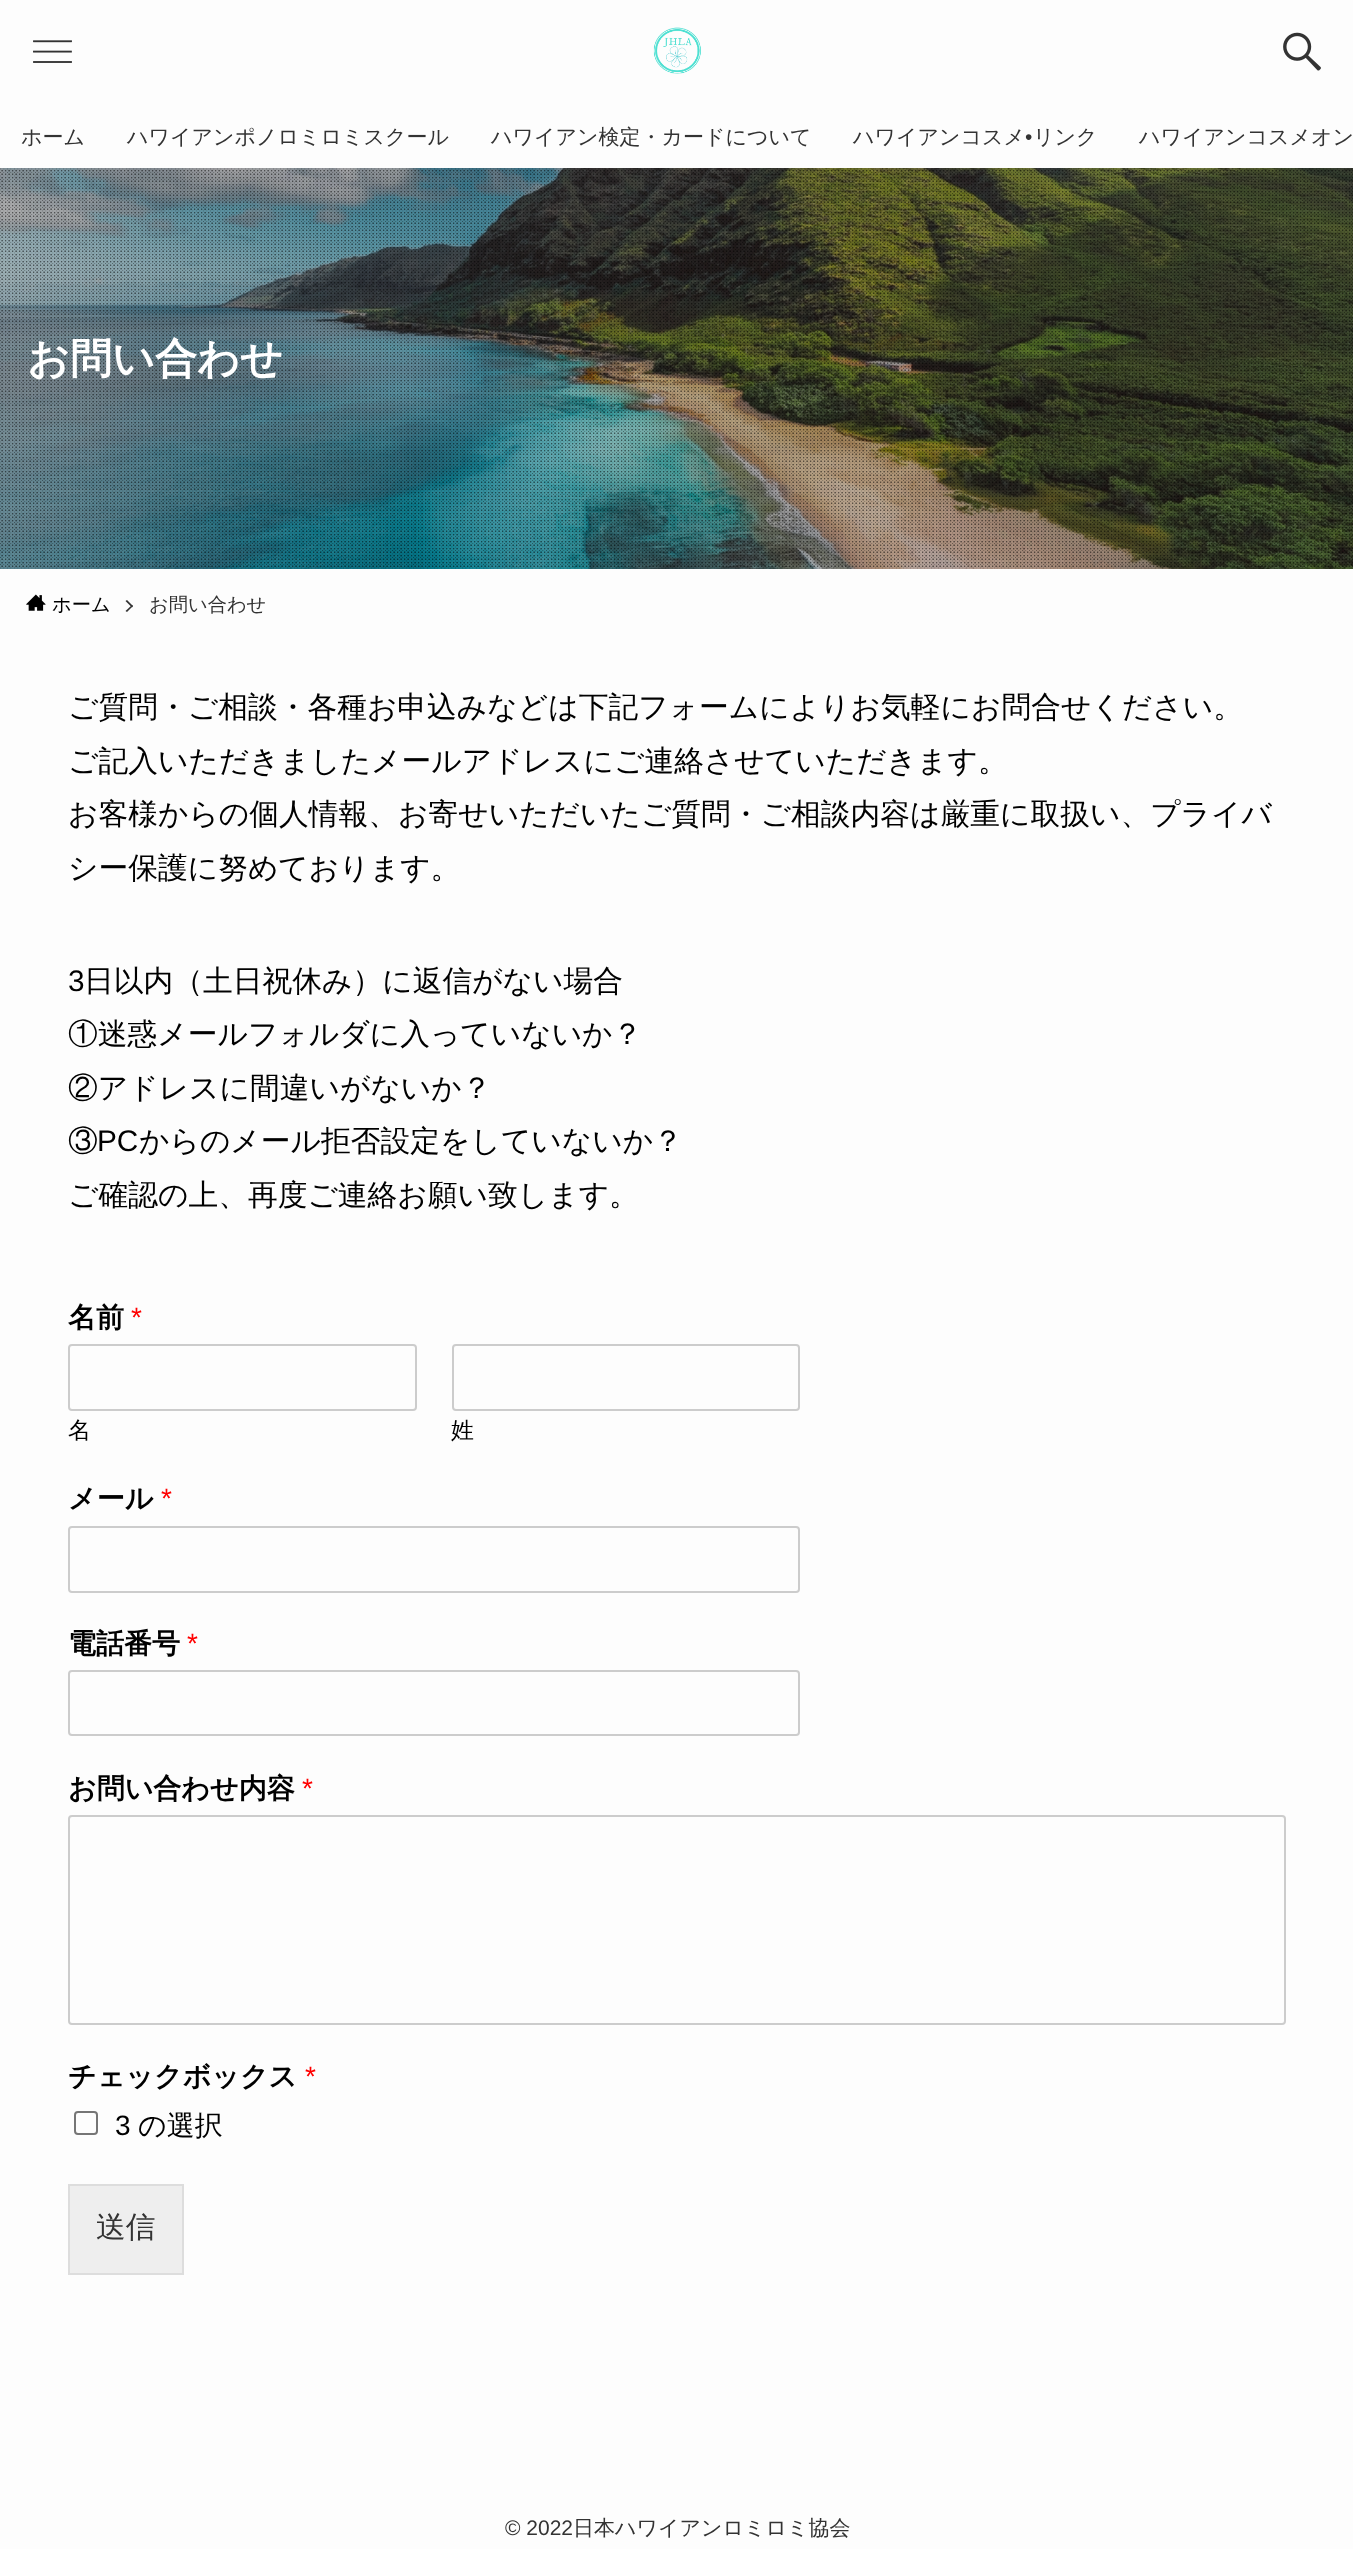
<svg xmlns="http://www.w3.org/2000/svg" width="1353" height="2549">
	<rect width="100%" height="100%" fill="#FDFDFD" />
	<image x="33" y="40" width="39" height="23" href="assets/img1.png" />
	<image x="653" y="27" width="48" height="47" href="assets/img2.png" />
	<image x="1283" y="32" width="38" height="39" href="assets/img3.png" />
	<g font-family="WenQuanYi Zen Hei" font-size="21" font-weight="500" fill="#333333">
		<text x="21" y="144">ホーム</text>
		<text x="127" y="144">ハワイアンポノロミロミスクール</text>
		<text x="491" y="144">ハワイアン検定・カードについて</text>
		<text x="853" y="144">ハワイアンコスメ</text>
	</g>
	<text x="1025" y="144" font-family="Liberation Sans" font-size="21" fill="#333333">•</text>
	<g font-family="WenQuanYi Zen Hei" font-size="21" font-weight="500" fill="#333333">
		<text x="1033" y="144">リンク</text>
		<text x="1139" y="144">ハワイアンコスメオン</text>
	</g>
	<image x="0" y="168" width="1353" height="401" href="assets/img4.png" />
	<image x="0" y="168" width="1353" height="401" href="assets/img5.png" />
	<text x="27" y="373" font-family="WenQuanYi Zen Hei" font-size="42" font-weight="700" fill="#FFFFFF">お問い合わせ</text>
	<image x="26" y="594" width="20" height="17" href="assets/img6.png" />
	<text x="52" y="611" font-family="WenQuanYi Zen Hei" font-size="19.25" font-weight="500" fill="#000000">ホーム</text>
	<path d="M127 600L133 606L132 607.5L125.5 601Z" fill="#333333" />
	<path d="M132 605L133 606L127 612L125.5 611Z" fill="#333333" />
	<text x="149" y="611" font-family="WenQuanYi Zen Hei" font-size="19.25" font-weight="500" fill="#333333">お問い合わせ</text>
	<g font-family="WenQuanYi Zen Hei" font-size="29.75" font-weight="500" fill="#000000">
		<text x="68" y="717">ご質問・ご相談・各種お申込みなどは下記フォームによりお気軽にお問合せください。</text>
		<text x="68" y="771">ご記入いただきましたメールアドレスにご連絡させていただきます。</text>
		<text x="68" y="824">お客様からの個人情報、お寄せいただいたご質問・ご相談内容は厳重に取扱い、プライバ</text>
		<text x="68" y="878">シー保護に努めております。</text>
	</g>
	<text x="68" y="991" font-family="Liberation Sans" font-size="29.75" fill="#000000">3</text>
	<g font-family="WenQuanYi Zen Hei" font-size="29.75" font-weight="500" fill="#000000">
		<text x="84" y="991">日以内（土日祝休み）に返信がない場合</text>
		<text x="68" y="1044">①迷惑メールフォルダに入っていないか？</text>
		<text x="68" y="1098">②アドレスに間違いがないか？</text>
		<text x="68" y="1151">③</text>
	</g>
	<text x="97" y="1151" font-family="Liberation Sans" font-size="29.75" fill="#000000">PC</text>
	<g font-family="WenQuanYi Zen Hei" font-size="29.75" font-weight="500" fill="#000000">
		<text x="139" y="1151">からのメール拒否設定をしていないか？</text>
		<text x="68" y="1205">ご確認の上、再度ご連絡お願い致します。</text>
	</g>
	<text x="68" y="1327" font-family="WenQuanYi Zen Hei" font-size="28" font-weight="700" fill="#000000">名前</text>
	<text x="131" y="1327" font-family="Liberation Sans" font-size="28" fill="#FF0000">*</text>
	<rect x="69" y="1345" width="347" height="65" rx="3" fill="none" stroke="#CCCCCC" stroke-width="2" />
	<text x="68" y="1438" font-family="WenQuanYi Zen Hei" font-size="23" font-weight="500" fill="#000000">名</text>
	<rect x="453" y="1345" width="346" height="65" rx="3" fill="none" stroke="#CCCCCC" stroke-width="2" />
	<text x="451" y="1438" font-family="WenQuanYi Zen Hei" font-size="23" font-weight="500" fill="#000000">姓</text>
	<text x="68" y="1508" font-family="WenQuanYi Zen Hei" font-size="28" font-weight="700" fill="#000000">メール</text>
	<text x="161" y="1508" font-family="Liberation Sans" font-size="28" fill="#FF0000">*</text>
	<rect x="69" y="1527" width="730" height="65" rx="3" fill="none" stroke="#CCCCCC" stroke-width="2" />
	<text x="68" y="1653" font-family="WenQuanYi Zen Hei" font-size="28" font-weight="700" fill="#000000">電話番号</text>
	<text x="187" y="1653" font-family="Liberation Sans" font-size="28" fill="#FF0000">*</text>
	<rect x="69" y="1671" width="730" height="64" rx="3" fill="none" stroke="#CCCCCC" stroke-width="2" />
	<text x="68" y="1798" font-family="WenQuanYi Zen Hei" font-size="28" font-weight="700" fill="#000000">お問い合わせ内容</text>
	<text x="302" y="1798" font-family="Liberation Sans" font-size="28" fill="#FF0000">*</text>
	<rect x="69" y="1816" width="1216" height="208" rx="3" fill="none" stroke="#CCCCCC" stroke-width="2" />
	<text x="68" y="2086" font-family="WenQuanYi Zen Hei" font-size="28" font-weight="700" fill="#000000">チェックボックス</text>
	<text x="305" y="2086" font-family="Liberation Sans" font-size="28" fill="#FF0000">*</text>
	<rect x="75" y="2112" width="22" height="22" rx="3" fill="none" stroke="#767676" stroke-width="2" />
	<text x="115" y="2135" font-family="Liberation Sans" font-size="28" fill="#000000">3</text>
	<text x="138" y="2135" font-family="WenQuanYi Zen Hei" font-size="28" font-weight="500" fill="#000000">の選択</text>
	<rect x="69" y="2185" width="114" height="89" fill="#EEEEEE" stroke="#DDDDDD" stroke-width="2" />
	<text x="96" y="2237" font-family="WenQuanYi Zen Hei" font-size="29.75" font-weight="500" fill="#333333">送信</text>
	<text x="505" y="2535" font-family="Liberation Sans" font-size="21" fill="#333333">© 2022</text>
	<text x="573" y="2535" font-family="WenQuanYi Zen Hei" font-size="21" font-weight="500" fill="#333333">日本ハワイアンロミロミ協会</text>
</svg>
